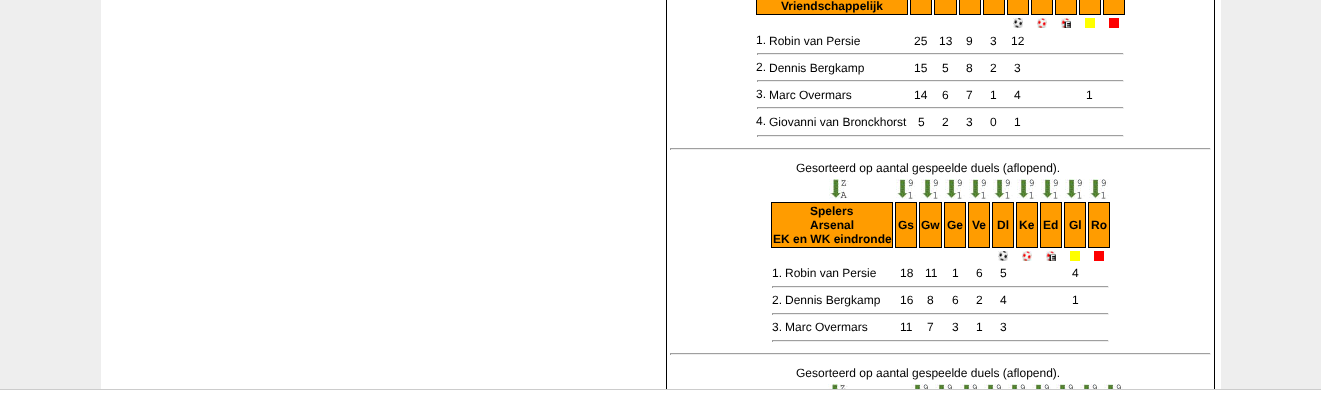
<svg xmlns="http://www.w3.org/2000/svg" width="1321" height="400">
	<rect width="100%" height="100%" fill="#EEEEEE" />
	<rect x="101" y="0" width="1120" height="389" fill="#FFFFFF" />
	<rect x="666.5" y="-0.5" width="548" height="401" fill="none" stroke="#000000" />
	<rect x="756.5" y="-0.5" width="151" height="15" fill="#FF9C00" stroke="#000000" />
	<text x="781" y="10" font-family="Liberation Sans" font-size="12" font-weight="700" fill="#000000">Vriendschappelijk</text>
	<rect x="910.5" y="-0.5" width="21" height="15" fill="#FF9C00" stroke="#000000" />
	<rect x="934.5" y="-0.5" width="22" height="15" fill="#FF9C00" stroke="#000000" />
	<rect x="959.5" y="-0.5" width="21" height="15" fill="#FF9C00" stroke="#000000" />
	<rect x="983.5" y="-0.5" width="21" height="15" fill="#FF9C00" stroke="#000000" />
	<rect x="1007.5" y="-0.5" width="21" height="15" fill="#FF9C00" stroke="#000000" />
	<rect x="1031.5" y="-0.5" width="21" height="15" fill="#FF9C00" stroke="#000000" />
	<rect x="1055.5" y="-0.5" width="21" height="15" fill="#FF9C00" stroke="#000000" />
	<rect x="1079.5" y="-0.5" width="21" height="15" fill="#FF9C00" stroke="#000000" />
	<rect x="1103.5" y="-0.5" width="21" height="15" fill="#FF9C00" stroke="#000000" />
	<image x="1013" y="18" width="10" height="10" href="assets/img1.png" />
	<image x="1037" y="18" width="10" height="10" href="assets/img2.png" />
	<image x="1061" y="18" width="10" height="10" href="assets/img3.png" />
	<rect x="1085" y="18" width="10" height="10" fill="#FFFF00" />
	<rect x="1109" y="18" width="10" height="10" fill="#FE0000" />
	<g font-family="Liberation Sans" font-size="12" fill="#000000">
		<text x="756" y="44">1.</text>
		<text x="769" y="45">Robin van Persie</text>
		<text x="914" y="45">25</text>
		<text x="939" y="45">13</text>
		<text x="966" y="45">9</text>
		<text x="990" y="45">3</text>
		<text x="1011" y="45">12</text>
	</g>
	<rect x="757" y="53" width="367" height="1" fill="#9F9F9F" />
	<rect x="1123" y="53" width="1" height="2" fill="#EEEEEE" />
	<rect x="757" y="54" width="367" height="1" fill="#EEEEEE" />
	<rect x="757" y="53" width="1" height="2" fill="#9F9F9F" />
	<g font-family="Liberation Sans" font-size="12" fill="#000000">
		<text x="756" y="71">2.</text>
		<text x="769" y="72">Dennis Bergkamp</text>
		<text x="914" y="72">15</text>
		<text x="942" y="72">5</text>
		<text x="966" y="72">8</text>
		<text x="990" y="72">2</text>
		<text x="1014" y="72">3</text>
	</g>
	<rect x="757" y="80" width="367" height="1" fill="#9F9F9F" />
	<rect x="1123" y="80" width="1" height="2" fill="#EEEEEE" />
	<rect x="757" y="81" width="367" height="1" fill="#EEEEEE" />
	<rect x="757" y="80" width="1" height="2" fill="#9F9F9F" />
	<g font-family="Liberation Sans" font-size="12" fill="#000000">
		<text x="756" y="98">3.</text>
		<text x="769" y="99">Marc Overmars</text>
		<text x="914" y="99">14</text>
		<text x="942" y="99">6</text>
		<text x="966" y="99">7</text>
		<text x="990" y="99">1</text>
		<text x="1014" y="99">4</text>
		<text x="1086" y="99">1</text>
	</g>
	<rect x="757" y="107" width="367" height="1" fill="#9F9F9F" />
	<rect x="1123" y="107" width="1" height="2" fill="#EEEEEE" />
	<rect x="757" y="108" width="367" height="1" fill="#EEEEEE" />
	<rect x="757" y="107" width="1" height="2" fill="#9F9F9F" />
	<g font-family="Liberation Sans" font-size="12" fill="#000000">
		<text x="756" y="125">4.</text>
		<text x="769" y="126">Giovanni van Bronckhorst</text>
		<text x="918" y="126">5</text>
		<text x="942" y="126">2</text>
		<text x="966" y="126">3</text>
		<text x="990" y="126">0</text>
		<text x="1014" y="126">1</text>
	</g>
	<rect x="757" y="135" width="367" height="1" fill="#9F9F9F" />
	<rect x="1123" y="135" width="1" height="2" fill="#EEEEEE" />
	<rect x="757" y="136" width="367" height="1" fill="#EEEEEE" />
	<rect x="757" y="135" width="1" height="2" fill="#9F9F9F" />
	<rect x="670" y="148" width="541" height="1" fill="#9F9F9F" />
	<rect x="1210" y="148" width="1" height="2" fill="#EEEEEE" />
	<rect x="670" y="149" width="541" height="1" fill="#EEEEEE" />
	<rect x="670" y="148" width="1" height="2" fill="#9F9F9F" />
	<text x="796" y="172" font-family="Liberation Sans" font-size="12" fill="#000000">Gesorteerd op aantal gespeelde duels (aflopend).</text>
	<image x="829" y="179" width="20" height="20" href="assets/img4.png" />
	<image x="896" y="179" width="20" height="20" href="assets/img5.png" />
	<image x="921" y="179" width="20" height="20" href="assets/img5.png" />
	<image x="945" y="179" width="20" height="20" href="assets/img5.png" />
	<image x="969" y="179" width="20" height="20" href="assets/img5.png" />
	<image x="993" y="179" width="20" height="20" href="assets/img5.png" />
	<image x="1017" y="179" width="20" height="20" href="assets/img5.png" />
	<image x="1041" y="179" width="20" height="20" href="assets/img5.png" />
	<image x="1065" y="179" width="20" height="20" href="assets/img5.png" />
	<image x="1089" y="179" width="20" height="20" href="assets/img5.png" />
	<rect x="771.5" y="202.5" width="121" height="45" fill="#FF9C00" stroke="#000000" />
	<g font-family="Liberation Sans" font-size="12" font-weight="700" fill="#000000">
		<text x="810" y="215">Spelers</text>
		<text x="810" y="229">Arsenal</text>
		<text x="773" y="243">EK en WK eindronde</text>
	</g>
	<rect x="895.5" y="202.5" width="21" height="45" fill="#FF9C00" stroke="#000000" />
	<text x="898" y="229" font-family="Liberation Sans" font-size="12" font-weight="700" fill="#000000">Gs</text>
	<rect x="919.5" y="202.5" width="22" height="45" fill="#FF9C00" stroke="#000000" />
	<text x="921" y="229" font-family="Liberation Sans" font-size="12" font-weight="700" fill="#000000">Gw</text>
	<rect x="944.5" y="202.5" width="21" height="45" fill="#FF9C00" stroke="#000000" />
	<text x="947" y="229" font-family="Liberation Sans" font-size="12" font-weight="700" fill="#000000">Ge</text>
	<rect x="968.5" y="202.5" width="21" height="45" fill="#FF9C00" stroke="#000000" />
	<text x="972" y="229" font-family="Liberation Sans" font-size="12" font-weight="700" fill="#000000">Ve</text>
	<rect x="992.5" y="202.5" width="21" height="45" fill="#FF9C00" stroke="#000000" />
	<text x="997" y="229" font-family="Liberation Sans" font-size="12" font-weight="700" fill="#000000">Dl</text>
	<rect x="1016.5" y="202.5" width="21" height="45" fill="#FF9C00" stroke="#000000" />
	<text x="1019" y="229" font-family="Liberation Sans" font-size="12" font-weight="700" fill="#000000">Ke</text>
	<rect x="1040.5" y="202.5" width="21" height="45" fill="#FF9C00" stroke="#000000" />
	<text x="1043" y="229" font-family="Liberation Sans" font-size="12" font-weight="700" fill="#000000">Ed</text>
	<rect x="1064.5" y="202.5" width="21" height="45" fill="#FF9C00" stroke="#000000" />
	<text x="1069" y="229" font-family="Liberation Sans" font-size="12" font-weight="700" fill="#000000">Gl</text>
	<rect x="1088.5" y="202.5" width="21" height="45" fill="#FF9C00" stroke="#000000" />
	<text x="1091" y="229" font-family="Liberation Sans" font-size="12" font-weight="700" fill="#000000">Ro</text>
	<image x="998" y="251" width="10" height="10" href="assets/img6.png" />
	<image x="1022" y="251" width="10" height="10" href="assets/img7.png" />
	<image x="1046" y="251" width="10" height="10" href="assets/img8.png" />
	<rect x="1070" y="251" width="10" height="10" fill="#FFFF00" />
	<rect x="1094" y="251" width="10" height="10" fill="#FE0000" />
	<g font-family="Liberation Sans" font-size="12" fill="#000000">
		<text x="772" y="277">1.</text>
		<text x="785" y="277">Robin van Persie</text>
		<text x="900" y="277">18</text>
		<text x="925" y="277">11</text>
		<text x="952" y="277">1</text>
		<text x="976" y="277">6</text>
		<text x="1000" y="277">5</text>
		<text x="1072" y="277">4</text>
	</g>
	<rect x="772" y="286" width="337" height="1" fill="#9F9F9F" />
	<rect x="1108" y="286" width="1" height="2" fill="#EEEEEE" />
	<rect x="772" y="287" width="337" height="1" fill="#EEEEEE" />
	<rect x="772" y="286" width="1" height="2" fill="#9F9F9F" />
	<g font-family="Liberation Sans" font-size="12" fill="#000000">
		<text x="772" y="304">2.</text>
		<text x="785" y="304">Dennis Bergkamp</text>
		<text x="900" y="304">16</text>
		<text x="927" y="304">8</text>
		<text x="952" y="304">6</text>
		<text x="976" y="304">2</text>
		<text x="1000" y="304">4</text>
		<text x="1072" y="304">1</text>
	</g>
	<rect x="772" y="313" width="337" height="1" fill="#9F9F9F" />
	<rect x="1108" y="313" width="1" height="2" fill="#EEEEEE" />
	<rect x="772" y="314" width="337" height="1" fill="#EEEEEE" />
	<rect x="772" y="313" width="1" height="2" fill="#9F9F9F" />
	<g font-family="Liberation Sans" font-size="12" fill="#000000">
		<text x="772" y="331">3.</text>
		<text x="785" y="331">Marc Overmars</text>
		<text x="900" y="331">11</text>
		<text x="927" y="331">7</text>
		<text x="952" y="331">3</text>
		<text x="976" y="331">1</text>
		<text x="1000" y="331">3</text>
	</g>
	<rect x="772" y="340" width="337" height="1" fill="#9F9F9F" />
	<rect x="1108" y="340" width="1" height="2" fill="#EEEEEE" />
	<rect x="772" y="341" width="337" height="1" fill="#EEEEEE" />
	<rect x="772" y="340" width="1" height="2" fill="#9F9F9F" />
	<rect x="670" y="353" width="541" height="1" fill="#9F9F9F" />
	<rect x="1210" y="353" width="1" height="2" fill="#EEEEEE" />
	<rect x="670" y="354" width="541" height="1" fill="#EEEEEE" />
	<rect x="670" y="353" width="1" height="2" fill="#9F9F9F" />
	<text x="796" y="377" font-family="Liberation Sans" font-size="12" fill="#000000">Gesorteerd op aantal gespeelde duels (aflopend).</text>
	<image x="828" y="384" width="20" height="5" href="assets/img9.png" />
	<image x="911" y="384" width="19" height="5" href="assets/img10.png" />
	<image x="935" y="384" width="19" height="5" href="assets/img10.png" />
	<image x="960" y="384" width="19" height="5" href="assets/img10.png" />
	<image x="984" y="384" width="19" height="5" href="assets/img10.png" />
	<image x="1008" y="384" width="19" height="5" href="assets/img10.png" />
	<image x="1032" y="384" width="19" height="5" href="assets/img10.png" />
	<image x="1056" y="384" width="19" height="5" href="assets/img10.png" />
	<image x="1080" y="384" width="19" height="5" href="assets/img10.png" />
	<image x="1104" y="384" width="19" height="5" href="assets/img10.png" />
	<rect x="0" y="390" width="1321" height="10" fill="#FFFFFF" />
	<rect x="0" y="389" width="1321" height="1" fill="#CCCCCC" />
</svg>
